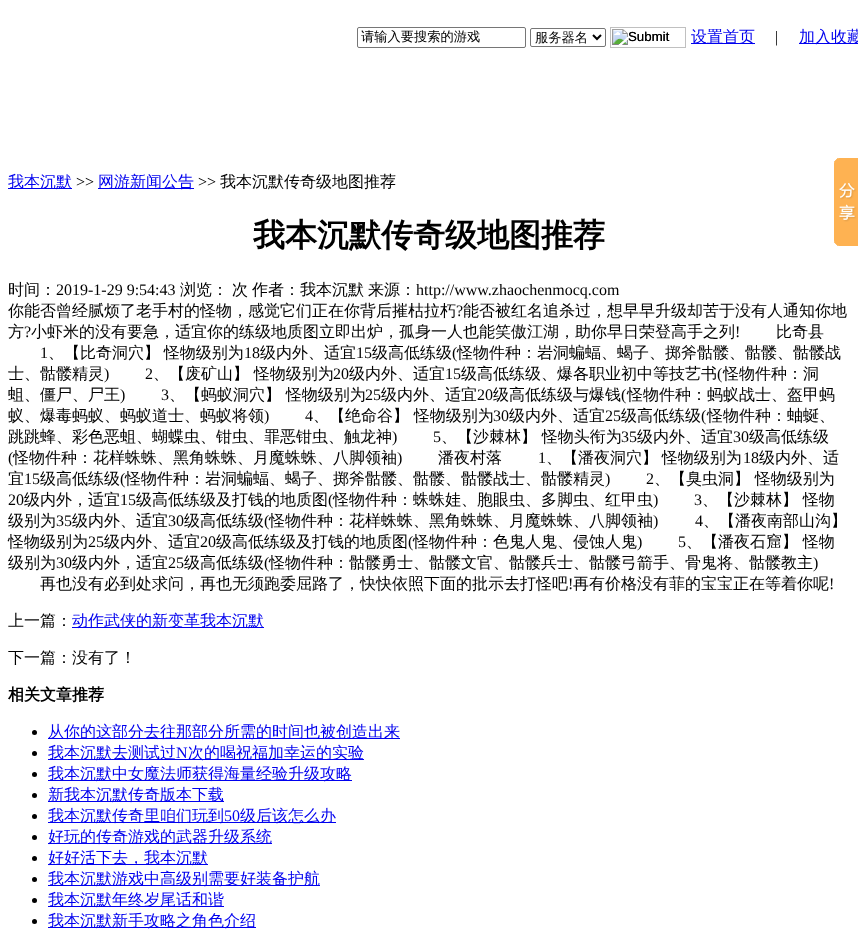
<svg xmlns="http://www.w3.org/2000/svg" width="858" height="935">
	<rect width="100%" height="100%" fill="#FFFFFF" />
	<rect x="357.5" y="27.5" width="168" height="20" rx="1.5" fill="none" stroke="#767676" />
	<text x="361" y="41" font-family="WenQuanYi Zen Hei" font-size="13.25" font-weight="500" fill="#000000">请输入要搜索的游戏</text>
	<rect x="530.5" y="28.5" width="75" height="18" rx="1.5" fill="none" stroke="#767676" />
	<path d="M593 35L597 39L601 35" fill="none" stroke="#000000" stroke-width="2" />
	<text x="535" y="42" font-family="WenQuanYi Zen Hei" font-size="13.25" font-weight="500" fill="#000000">服务器名</text>
	<image x="610" y="27" width="76" height="21" href="assets/img1.png" />
	<text x="628" y="41" font-family="Liberation Sans" font-size="13.25" fill="#000000">Submit</text>
	<rect x="691" y="43" width="64" height="1" fill="#0000EE" />
	<text x="691" y="42" font-family="WenQuanYi Zen Hei" font-size="16" font-weight="500" fill="#0000EE">设置首页</text>
	<text x="775" y="42" font-family="Liberation Serif" font-size="16" fill="#000000">|</text>
	<rect x="799" y="43" width="59" height="1" fill="#0000EE" />
	<text x="799" y="42" font-family="WenQuanYi Zen Hei" font-size="16" font-weight="500" fill="#0000EE">加入收藏</text>
	<image x="834" y="158" width="24" height="88" href="assets/img2.png" />
	<rect x="8" y="188" width="64" height="1" fill="#0000EE" />
	<text x="8" y="187" font-family="WenQuanYi Zen Hei" font-size="16" font-weight="500" fill="#0000EE">我本沉默</text>
	<text x="76" y="187" font-family="Liberation Serif" font-size="16" fill="#000000">&gt;&gt;</text>
	<rect x="98" y="188" width="96" height="1" fill="#0000EE" />
	<text x="98" y="187" font-family="WenQuanYi Zen Hei" font-size="16" font-weight="500" fill="#0000EE">网游新闻公告</text>
	<text x="198" y="187" font-family="Liberation Serif" font-size="16" fill="#000000">&gt;&gt;</text>
	<text x="220" y="187" font-family="WenQuanYi Zen Hei" font-size="16" font-weight="500" fill="#000000">我本沉默传奇级地图推荐</text>
	<text x="253" y="246" font-family="WenQuanYi Zen Hei" font-size="32" font-weight="700" fill="#000000">我本沉默传奇级地图推荐</text>
	<text x="8" y="295" font-family="WenQuanYi Zen Hei" font-size="16" font-weight="500" fill="#000000">时间：</text>
	<text x="56" y="295" font-family="Liberation Serif" font-size="16" fill="#000000">2019-1-29 9:54:43</text>
	<g font-family="WenQuanYi Zen Hei" font-size="16" font-weight="500" fill="#000000">
		<text x="180" y="295">浏览：</text>
		<text x="232" y="295">次</text>
		<text x="252" y="295">作者：我本沉默</text>
		<text x="368" y="295">来源：</text>
	</g>
	<text x="416" y="295" font-family="Liberation Serif" font-size="16" fill="#000000">http://www.zhaochenmocq.com</text>
	<text x="8" y="316" font-family="WenQuanYi Zen Hei" font-size="16" font-weight="500" fill="#000000">你能否曾经腻烦了老手村的怪物，感觉它们正在你背后摧枯拉朽</text>
	<text x="456" y="316" font-family="Liberation Serif" font-size="16" fill="#000000">?</text>
	<g font-family="WenQuanYi Zen Hei" font-size="16" font-weight="500" fill="#000000">
		<text x="463" y="316">能否被红名追杀过，想早早升级却苦于没有人通知你地</text>
		<text x="8" y="337">方</text>
	</g>
	<text x="24" y="337" font-family="Liberation Serif" font-size="16" fill="#000000">?</text>
	<text x="31" y="337" font-family="WenQuanYi Zen Hei" font-size="16" font-weight="500" fill="#000000">小虾米的没有要急，适宜你的练级地质图立即出炉，孤身一人也能笑傲江湖，助你早日荣登高手之列</text>
	<text x="735" y="337" font-family="Liberation Serif" font-size="16" fill="#000000">!</text>
	<text x="776" y="337" font-family="WenQuanYi Zen Hei" font-size="16" font-weight="500" fill="#000000">比奇县</text>
	<text x="40" y="358" font-family="Liberation Serif" font-size="16" fill="#000000">1</text>
	<text x="48" y="358" word-spacing="-1" font-family="WenQuanYi Zen Hei" font-size="16" font-weight="500" fill="#000000">、【比奇洞穴】 怪物级别为</text>
	<text x="244" y="358" font-family="Liberation Serif" font-size="16" fill="#000000">18</text>
	<text x="260" y="358" font-family="WenQuanYi Zen Hei" font-size="16" font-weight="500" fill="#000000">级内外、适宜</text>
	<text x="356" y="358" font-family="Liberation Serif" font-size="16" fill="#000000">15</text>
	<text x="372" y="358" font-family="WenQuanYi Zen Hei" font-size="16" font-weight="500" fill="#000000">级高低练级</text>
	<text x="452" y="358" font-family="Liberation Serif" font-size="16" fill="#000000">(</text>
	<g font-family="WenQuanYi Zen Hei" font-size="16" font-weight="500" fill="#000000">
		<text x="457" y="358">怪物件种：岩洞蝙蝠、蝎子、掷斧骷髅、骷髅、骷髅战</text>
		<text x="8" y="379">士、骷髅精灵</text>
	</g>
	<g font-family="Liberation Serif" font-size="16" fill="#000000">
		<text x="104" y="379">)</text>
		<text x="145" y="379">2</text>
	</g>
	<text x="153" y="379" font-family="WenQuanYi Zen Hei" font-size="16" font-weight="500" fill="#000000">、【废矿山】 怪物级别为</text>
	<text x="333" y="379" font-family="Liberation Serif" font-size="16" fill="#000000">20</text>
	<text x="349" y="379" font-family="WenQuanYi Zen Hei" font-size="16" font-weight="500" fill="#000000">级内外、适宜</text>
	<text x="445" y="379" font-family="Liberation Serif" font-size="16" fill="#000000">15</text>
	<text x="461" y="379" font-family="WenQuanYi Zen Hei" font-size="16" font-weight="500" fill="#000000">级高低练级、爆各职业初中等技艺书</text>
	<text x="717" y="379" font-family="Liberation Serif" font-size="16" fill="#000000">(</text>
	<g font-family="WenQuanYi Zen Hei" font-size="16" font-weight="500" fill="#000000">
		<text x="723" y="379">怪物件种：洞</text>
		<text x="8" y="400">蛆、僵尸、尸王</text>
	</g>
	<g font-family="Liberation Serif" font-size="16" fill="#000000">
		<text x="120" y="400">)</text>
		<text x="161" y="400">3</text>
	</g>
	<text x="169" y="400" font-family="WenQuanYi Zen Hei" font-size="16" font-weight="500" fill="#000000">、【蚂蚁洞穴】 怪物级别为</text>
	<text x="365" y="400" font-family="Liberation Serif" font-size="16" fill="#000000">25</text>
	<text x="381" y="400" font-family="WenQuanYi Zen Hei" font-size="16" font-weight="500" fill="#000000">级内外、适宜</text>
	<text x="477" y="400" font-family="Liberation Serif" font-size="16" fill="#000000">20</text>
	<text x="493" y="400" font-family="WenQuanYi Zen Hei" font-size="16" font-weight="500" fill="#000000">级高低练级与爆钱</text>
	<text x="621" y="400" font-family="Liberation Serif" font-size="16" fill="#000000">(</text>
	<g font-family="WenQuanYi Zen Hei" font-size="16" font-weight="500" fill="#000000">
		<text x="627" y="400">怪物件种：蚂蚁战士、盔甲蚂</text>
		<text x="8" y="421">蚁、爆毒蚂蚁、蚂蚁道士、蚂蚁将领</text>
	</g>
	<g font-family="Liberation Serif" font-size="16" fill="#000000">
		<text x="264" y="421">)</text>
		<text x="305" y="421">4</text>
	</g>
	<text x="313" y="421" font-family="WenQuanYi Zen Hei" font-size="16" font-weight="500" fill="#000000">、【绝命谷】 怪物级别为</text>
	<text x="493" y="421" font-family="Liberation Serif" font-size="16" fill="#000000">30</text>
	<text x="509" y="421" font-family="WenQuanYi Zen Hei" font-size="16" font-weight="500" fill="#000000">级内外、适宜</text>
	<text x="605" y="421" font-family="Liberation Serif" font-size="16" fill="#000000">25</text>
	<text x="621" y="421" font-family="WenQuanYi Zen Hei" font-size="16" font-weight="500" fill="#000000">级高低练级</text>
	<text x="701" y="421" font-family="Liberation Serif" font-size="16" fill="#000000">(</text>
	<g font-family="WenQuanYi Zen Hei" font-size="16" font-weight="500" fill="#000000">
		<text x="707" y="421">怪物件种：蚰蜒、</text>
		<text x="8" y="442">跳跳蜂、彩色恶蛆、蝴蝶虫、钳虫、罪恶钳虫、触龙神</text>
	</g>
	<g font-family="Liberation Serif" font-size="16" fill="#000000">
		<text x="392" y="442">)</text>
		<text x="433" y="442">5</text>
	</g>
	<text x="441" y="442" font-family="WenQuanYi Zen Hei" font-size="16" font-weight="500" fill="#000000">、【沙棘林】 怪物头衔为</text>
	<text x="621" y="442" font-family="Liberation Serif" font-size="16" fill="#000000">35</text>
	<text x="637" y="442" font-family="WenQuanYi Zen Hei" font-size="16" font-weight="500" fill="#000000">级内外、适宜</text>
	<text x="733" y="442" font-family="Liberation Serif" font-size="16" fill="#000000">30</text>
	<text x="749" y="442" font-family="WenQuanYi Zen Hei" font-size="16" font-weight="500" fill="#000000">级高低练级</text>
	<text x="8" y="463" font-family="Liberation Serif" font-size="16" fill="#000000">(</text>
	<text x="13" y="463" font-family="WenQuanYi Zen Hei" font-size="16" font-weight="500" fill="#000000">怪物件种：花样蛛蛛、黑角蛛蛛、月魔蛛蛛、八脚领袖</text>
	<text x="397" y="463" font-family="Liberation Serif" font-size="16" fill="#000000">)</text>
	<text x="438" y="463" font-family="WenQuanYi Zen Hei" font-size="16" font-weight="500" fill="#000000">潘夜村落</text>
	<text x="538" y="463" font-family="Liberation Serif" font-size="16" fill="#000000">1</text>
	<text x="546" y="463" word-spacing="-1" font-family="WenQuanYi Zen Hei" font-size="16" font-weight="500" fill="#000000">、【潘夜洞穴】 怪物级别为</text>
	<text x="743" y="463" font-family="Liberation Serif" font-size="16" fill="#000000">18</text>
	<g font-family="WenQuanYi Zen Hei" font-size="16" font-weight="500" fill="#000000">
		<text x="759" y="463">级内外、适</text>
		<text x="8" y="484">宜</text>
	</g>
	<text x="24" y="484" font-family="Liberation Serif" font-size="16" fill="#000000">15</text>
	<text x="40" y="484" font-family="WenQuanYi Zen Hei" font-size="16" font-weight="500" fill="#000000">级高低练级</text>
	<text x="120" y="484" font-family="Liberation Serif" font-size="16" fill="#000000">(</text>
	<text x="125" y="484" font-family="WenQuanYi Zen Hei" font-size="16" font-weight="500" fill="#000000">怪物件种：岩洞蝙蝠、蝎子、掷斧骷髅、骷髅、骷髅战士、骷髅精灵</text>
	<g font-family="Liberation Serif" font-size="16" fill="#000000">
		<text x="605" y="484">)</text>
		<text x="646" y="484">2</text>
	</g>
	<text x="654" y="484" font-family="WenQuanYi Zen Hei" font-size="16" font-weight="500" fill="#000000">、【臭虫洞】 怪物级别为</text>
	<text x="8" y="505" font-family="Liberation Serif" font-size="16" fill="#000000">20</text>
	<text x="24" y="505" font-family="WenQuanYi Zen Hei" font-size="16" font-weight="500" fill="#000000">级内外，适宜</text>
	<text x="120" y="505" font-family="Liberation Serif" font-size="16" fill="#000000">15</text>
	<text x="136" y="505" font-family="WenQuanYi Zen Hei" font-size="16" font-weight="500" fill="#000000">级高低练级及打钱的地质图</text>
	<text x="328" y="505" font-family="Liberation Serif" font-size="16" fill="#000000">(</text>
	<text x="333" y="505" font-family="WenQuanYi Zen Hei" font-size="16" font-weight="500" fill="#000000">怪物件种：蛛蛛娃、胞眼虫、多脚虫、红甲虫</text>
	<g font-family="Liberation Serif" font-size="16" fill="#000000">
		<text x="653" y="505">)</text>
		<text x="694" y="505">3</text>
	</g>
	<g font-family="WenQuanYi Zen Hei" font-size="16" font-weight="500" fill="#000000">
		<text x="702" y="505">、【沙棘林】 怪物</text>
		<text x="8" y="526">级别为</text>
	</g>
	<text x="56" y="526" font-family="Liberation Serif" font-size="16" fill="#000000">35</text>
	<text x="72" y="526" font-family="WenQuanYi Zen Hei" font-size="16" font-weight="500" fill="#000000">级内外、适宜</text>
	<text x="168" y="526" font-family="Liberation Serif" font-size="16" fill="#000000">30</text>
	<text x="184" y="526" font-family="WenQuanYi Zen Hei" font-size="16" font-weight="500" fill="#000000">级高低练级</text>
	<text x="264" y="526" font-family="Liberation Serif" font-size="16" fill="#000000">(</text>
	<text x="269" y="526" font-family="WenQuanYi Zen Hei" font-size="16" font-weight="500" fill="#000000">怪物件种：花样蛛蛛、黑角蛛蛛、月魔蛛蛛、八脚领袖</text>
	<g font-family="Liberation Serif" font-size="16" fill="#000000">
		<text x="653" y="526">)</text>
		<text x="695" y="526">4</text>
	</g>
	<g font-family="WenQuanYi Zen Hei" font-size="16" font-weight="500" fill="#000000">
		<text x="703" y="526">、【潘夜南部山沟】</text>
		<text x="8" y="547">怪物级别为</text>
	</g>
	<text x="88" y="547" font-family="Liberation Serif" font-size="16" fill="#000000">25</text>
	<text x="104" y="547" font-family="WenQuanYi Zen Hei" font-size="16" font-weight="500" fill="#000000">级内外、适宜</text>
	<text x="200" y="547" font-family="Liberation Serif" font-size="16" fill="#000000">20</text>
	<text x="216" y="547" font-family="WenQuanYi Zen Hei" font-size="16" font-weight="500" fill="#000000">级高低练级及打钱的地质图</text>
	<text x="408" y="547" font-family="Liberation Serif" font-size="16" fill="#000000">(</text>
	<text x="413" y="547" font-family="WenQuanYi Zen Hei" font-size="16" font-weight="500" fill="#000000">怪物件种：色鬼人鬼、侵蚀人鬼</text>
	<g font-family="Liberation Serif" font-size="16" fill="#000000">
		<text x="637" y="547">)</text>
		<text x="678" y="547">5</text>
	</g>
	<g font-family="WenQuanYi Zen Hei" font-size="16" font-weight="500" fill="#000000">
		<text x="686" y="547">、【潘夜石窟】 怪物</text>
		<text x="8" y="568">级别为</text>
	</g>
	<text x="56" y="568" font-family="Liberation Serif" font-size="16" fill="#000000">30</text>
	<text x="72" y="568" font-family="WenQuanYi Zen Hei" font-size="16" font-weight="500" fill="#000000">级内外，适宜</text>
	<text x="168" y="568" font-family="Liberation Serif" font-size="16" fill="#000000">25</text>
	<text x="184" y="568" font-family="WenQuanYi Zen Hei" font-size="16" font-weight="500" fill="#000000">级高低练级</text>
	<text x="264" y="568" font-family="Liberation Serif" font-size="16" fill="#000000">(</text>
	<text x="269" y="568" font-family="WenQuanYi Zen Hei" font-size="16" font-weight="500" fill="#000000">怪物件种：骷髅勇士、骷髅文官、骷髅兵士、骷髅弓箭手、骨鬼将、骷髅教主</text>
	<text x="813" y="568" font-family="Liberation Serif" font-size="16" fill="#000000">)</text>
	<text x="40" y="589" font-family="WenQuanYi Zen Hei" font-size="16" font-weight="500" fill="#000000">再也没有必到处求问，再也无须跑委屈路了，快快依照下面的批示去打怪吧</text>
	<text x="568" y="589" font-family="Liberation Serif" font-size="16" fill="#000000">!</text>
	<text x="573" y="589" font-family="WenQuanYi Zen Hei" font-size="16" font-weight="500" fill="#000000">再有价格没有菲的宝宝正在等着你呢</text>
	<text x="829" y="589" font-family="Liberation Serif" font-size="16" fill="#000000">!</text>
	<text x="8" y="626" font-family="WenQuanYi Zen Hei" font-size="16" font-weight="500" fill="#000000">上一篇：</text>
	<rect x="72" y="627" width="192" height="1" fill="#0000EE" />
	<text x="72" y="626" font-family="WenQuanYi Zen Hei" font-size="16" font-weight="500" fill="#0000EE">动作武侠的新变革我本沉默</text>
	<text x="8" y="663" font-family="WenQuanYi Zen Hei" font-size="16" font-weight="500" fill="#000000">下一篇：没有了！</text>
	<text x="8" y="700" font-family="WenQuanYi Zen Hei" font-size="16" font-weight="700" fill="#000000">相关文章推荐</text>
	<circle cx="34.5" cy="732.5" r="2.5" fill="#000000" />
	<rect x="48" y="738" width="352" height="1" fill="#0000EE" />
	<text x="48" y="737" font-family="WenQuanYi Zen Hei" font-size="16" font-weight="500" fill="#0000EE">从你的这部分去往那部分所需的时间也被创造出来</text>
	<circle cx="34.5" cy="753.5" r="2.5" fill="#000000" />
	<rect x="48" y="759" width="316" height="1" fill="#0000EE" />
	<text x="48" y="758" font-family="WenQuanYi Zen Hei" font-size="16" font-weight="500" fill="#0000EE">我本沉默去测试过</text>
	<text x="176" y="758" font-family="Liberation Serif" font-size="16" fill="#0000EE">N</text>
	<text x="188" y="758" font-family="WenQuanYi Zen Hei" font-size="16" font-weight="500" fill="#0000EE">次的喝祝福加幸运的实验</text>
	<circle cx="34.5" cy="774.5" r="2.5" fill="#000000" />
	<rect x="48" y="780" width="304" height="1" fill="#0000EE" />
	<text x="48" y="779" font-family="WenQuanYi Zen Hei" font-size="16" font-weight="500" fill="#0000EE">我本沉默中女魔法师获得海量经验升级攻略</text>
	<circle cx="34.5" cy="795.5" r="2.5" fill="#000000" />
	<rect x="48" y="801" width="176" height="1" fill="#0000EE" />
	<text x="48" y="800" font-family="WenQuanYi Zen Hei" font-size="16" font-weight="500" fill="#0000EE">新我本沉默传奇版本下载</text>
	<circle cx="34.5" cy="816.5" r="2.5" fill="#000000" />
	<rect x="48" y="822" width="288" height="1" fill="#0000EE" />
	<text x="48" y="821" font-family="WenQuanYi Zen Hei" font-size="16" font-weight="500" fill="#0000EE">我本沉默传奇里咱们玩到</text>
	<text x="224" y="821" font-family="Liberation Serif" font-size="16" fill="#0000EE">50</text>
	<text x="240" y="821" font-family="WenQuanYi Zen Hei" font-size="16" font-weight="500" fill="#0000EE">级后该怎么办</text>
	<circle cx="34.5" cy="837.5" r="2.5" fill="#000000" />
	<rect x="48" y="843" width="224" height="1" fill="#0000EE" />
	<text x="48" y="842" font-family="WenQuanYi Zen Hei" font-size="16" font-weight="500" fill="#0000EE">好玩的传奇游戏的武器升级系统</text>
	<circle cx="34.5" cy="858.5" r="2.5" fill="#000000" />
	<rect x="48" y="864" width="160" height="1" fill="#0000EE" />
	<text x="48" y="863" font-family="WenQuanYi Zen Hei" font-size="16" font-weight="500" fill="#0000EE">好好活下去，我本沉默</text>
	<circle cx="34.5" cy="879.5" r="2.5" fill="#000000" />
	<rect x="48" y="885" width="272" height="1" fill="#0000EE" />
	<text x="48" y="884" font-family="WenQuanYi Zen Hei" font-size="16" font-weight="500" fill="#0000EE">我本沉默游戏中高级别需要好装备护航</text>
	<circle cx="34.5" cy="900.5" r="2.5" fill="#000000" />
	<rect x="48" y="906" width="176" height="1" fill="#0000EE" />
	<text x="48" y="905" font-family="WenQuanYi Zen Hei" font-size="16" font-weight="500" fill="#0000EE">我本沉默年终岁尾话和谐</text>
	<circle cx="34.5" cy="921.5" r="2.5" fill="#000000" />
	<rect x="48" y="927" width="208" height="1" fill="#0000EE" />
	<text x="48" y="926" font-family="WenQuanYi Zen Hei" font-size="16" font-weight="500" fill="#0000EE">我本沉默新手攻略之角色介绍</text>
</svg>
